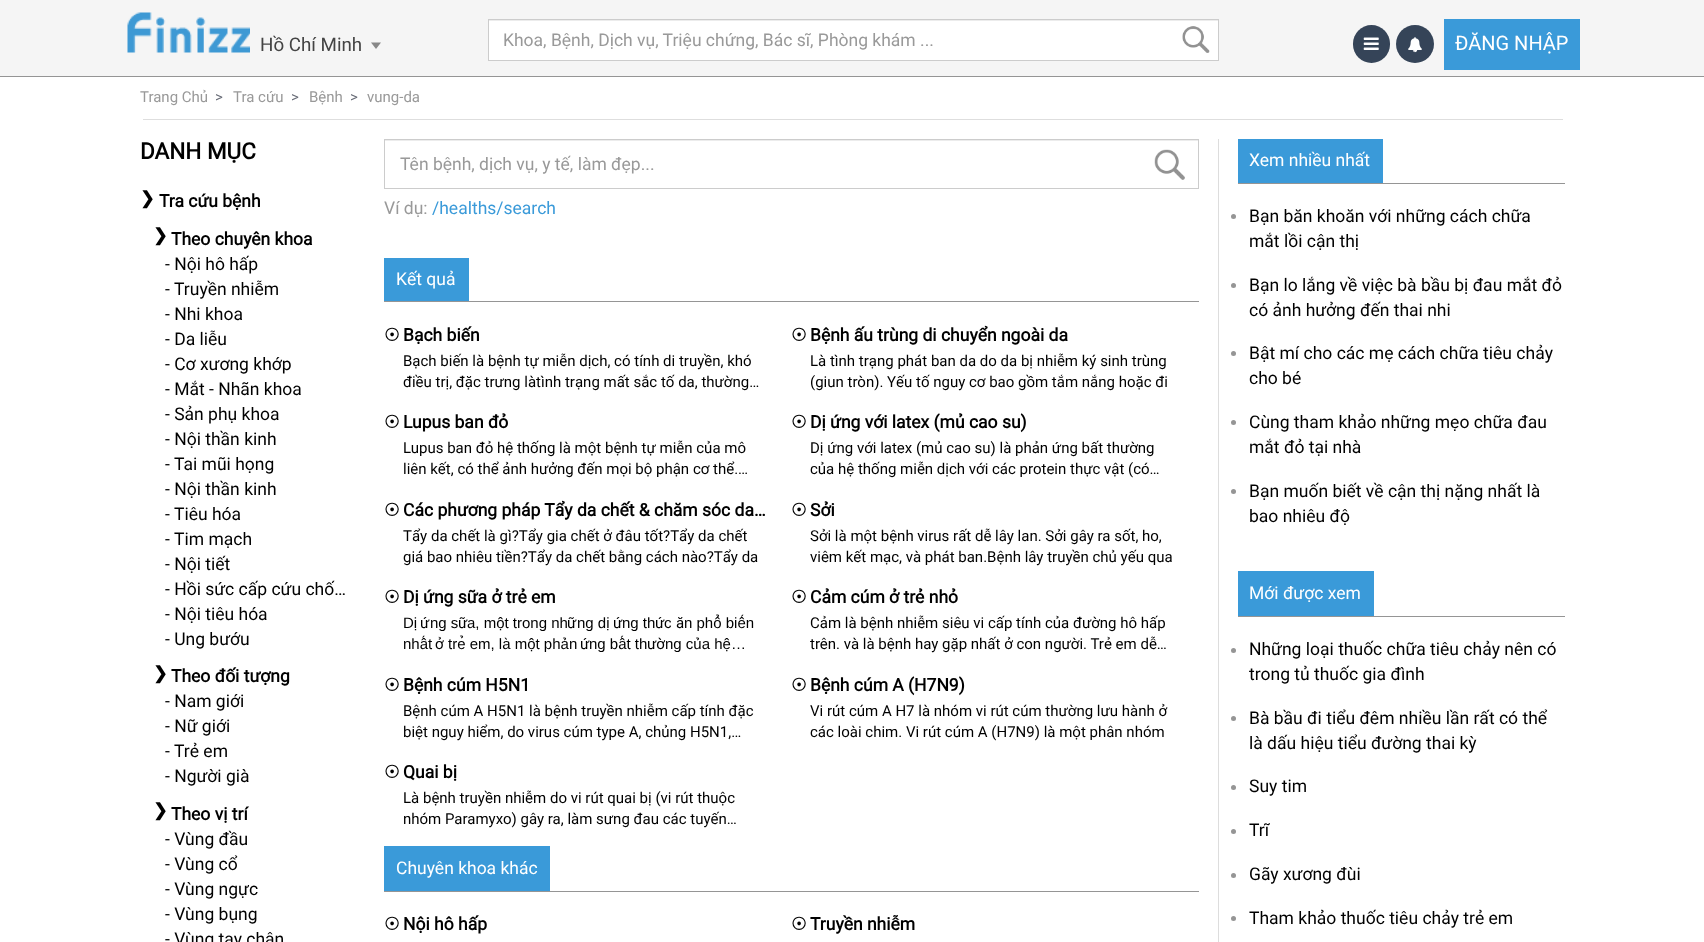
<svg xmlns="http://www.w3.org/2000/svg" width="1704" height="942">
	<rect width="100%" height="100%" fill="#FFFFFF" />
	<rect x="0" y="0" width="1704" height="76" fill="#F5F5F5" />
	<image x="127" y="12" width="123" height="41" href="assets/img1.png" />
	<text x="260" y="51" font-family="Roboto" font-size="18.75" fill="#444444">Hồ Chí Minh</text>
	<path d="M371 42.5H381L376 49Z" fill="#888888" />
	<rect x="489" y="21" width="729" height="39" fill="#FFFFFF" />
	<rect x="489" y="20" width="729" height="1" fill="#ECECEC" />
	<rect x="488.5" y="19.5" width="730" height="41" fill="none" stroke="#CCCCCC" />
	<text x="503" y="46" font-family="Roboto" font-size="17.5" fill="#999999">Khoa, Bệnh, Dịch vụ, Triệu chứng, Bác sĩ, Phòng khám ...</text>
	<image x="1182" y="26" width="28" height="27" href="assets/img2.png" />
	<rect x="1353" y="25" width="37" height="38" rx="18.5" fill="#354458" />
	<image x="1363" y="37" width="16" height="13" href="assets/img3.png" />
	<circle cx="1415" cy="44" r="19" fill="#354458" />
	<image x="1408" y="37" width="14" height="16" href="assets/img4.png" />
	<rect x="1444" y="19" width="136" height="51" fill="#3A9AD9" />
	<text x="1455" y="50" font-family="Roboto" font-size="20" fill="#FFFFFF">ĐĂNG NHẬP</text>
	<rect x="0" y="76" width="1704" height="1" fill="#959595" />
	<rect x="143" y="119" width="1420" height="1" fill="#DEDEDE" />
	<text x="140" y="102" font-family="Roboto" font-size="15" fill="#999999">Trang Chủ</text>
	<text x="215" y="102" font-family="Roboto" font-size="15" fill="#686C77">&gt;</text>
	<text x="233" y="102" font-family="Roboto" font-size="15" fill="#999999">Tra cứu</text>
	<text x="291" y="102" font-family="Roboto" font-size="15" fill="#686C77">&gt;</text>
	<text x="309" y="102" font-family="Roboto" font-size="15" fill="#999999">Bệnh</text>
	<text x="350" y="102" font-family="Roboto" font-size="15" fill="#686C77">&gt;</text>
	<text x="367" y="102" font-family="Roboto" font-size="15" fill="#999999">vung-da</text>
	<text x="140" y="159" font-family="Roboto" font-size="22.5" font-weight="700" fill="#000000">DANH MỤC</text>
	<text x="140" y="204" word-spacing="-1" font-family="DejaVu Sans" font-size="17.5" font-weight="700" fill="#000000">❯ ︎</text>
	<text x="159" y="207" font-family="Roboto" font-size="17.5" font-weight="700" fill="#000000">Tra cứu bệnh</text>
	<text x="153" y="241" word-spacing="-1" font-family="DejaVu Sans" font-size="17.5" font-weight="700" fill="#000000">❯ ︎</text>
	<text x="171" y="245" font-family="Roboto" font-size="17.5" font-weight="700" fill="#000000">Theo chuyên khoa</text>
	<g font-family="Roboto" font-size="17.5" fill="#000000">
		<text x="165" y="270">- ︎Nội hô hấp</text>
		<text x="165" y="295">- ︎</text>
		<text x="174" y="295">Truyền nhiễm</text>
		<text x="165" y="320">- ︎Nhi khoa</text>
		<text x="165" y="345">- ︎Da liễu</text>
		<text x="165" y="370">- ︎Cơ xương khớp</text>
		<text x="165" y="395">- ︎Mắt - Nhãn khoa</text>
		<text x="165" y="420">- ︎Sản phụ khoa</text>
		<text x="165" y="445">- ︎Nội thần kinh</text>
		<text x="165" y="470">- ︎</text>
		<text x="174" y="470">Tai mũi họng</text>
		<text x="165" y="495">- ︎Nội thần kinh</text>
		<text x="165" y="520">- ︎</text>
		<text x="174" y="520">Tiêu hóa</text>
		<text x="165" y="545">- ︎</text>
		<text x="174" y="545">Tim mạch</text>
		<text x="165" y="570">- ︎Nội tiết</text>
		<text x="165" y="595">- ︎Hồi sức cấp cứu chố…</text>
		<text x="165" y="620">- ︎Nội tiêu hóa</text>
		<text x="165" y="645">- ︎Ung bướu</text>
	</g>
	<text x="153" y="679" word-spacing="-1" font-family="DejaVu Sans" font-size="17.5" font-weight="700" fill="#000000">❯ ︎</text>
	<text x="171" y="682" font-family="Roboto" font-size="17.5" font-weight="700" fill="#000000">Theo đối tượng</text>
	<g font-family="Roboto" font-size="17.5" fill="#000000">
		<text x="165" y="707">- ︎Nam giới</text>
		<text x="165" y="732">- ︎Nữ giới</text>
		<text x="165" y="757">- ︎</text>
		<text x="174" y="757">Trẻ em</text>
		<text x="165" y="782">- ︎Người già</text>
	</g>
	<text x="153" y="816" word-spacing="-1" font-family="DejaVu Sans" font-size="17.5" font-weight="700" fill="#000000">❯ ︎</text>
	<text x="171" y="820" font-family="Roboto" font-size="17.5" font-weight="700" fill="#000000">Theo vị trí</text>
	<g font-family="Roboto" font-size="17.5" fill="#000000">
		<text x="165" y="845">- ︎Vùng đầu</text>
		<text x="165" y="870">- ︎Vùng cổ</text>
		<text x="165" y="895">- ︎Vùng ngực</text>
		<text x="165" y="920">- ︎Vùng bụng</text>
		<text x="165" y="945">- ︎Vùng tay chân</text>
	</g>
	<rect x="1218" y="139" width="1" height="803" fill="#DDDDDD" />
	<rect x="385" y="140" width="813" height="1" fill="#ECECEC" />
	<rect x="384.5" y="139.5" width="814" height="49" fill="none" stroke="#CCCCCC" />
	<text x="400" y="170" font-family="Roboto" font-size="17.5" fill="#999999">Tên bệnh, dịch vụ, y tế, làm đẹp...</text>
	<image x="1154" y="149" width="31" height="31" href="assets/img5.png" />
	<text x="384" y="214" font-family="Roboto" font-size="17.5" fill="#999999">Ví dụ:</text>
	<text x="432" y="214" font-family="Roboto" font-size="17.5" fill="#3A9AD9">/healths/search</text>
	<rect x="384" y="301" width="815" height="1" fill="#959595" />
	<rect x="384" y="258" width="85" height="43" fill="#3A9AD9" />
	<text x="396" y="285" font-family="Roboto" font-size="17.5" fill="#FFFFFF">Kết quả</text>
	<text x="384" y="341" font-family="DejaVu Sans" font-size="17.5" font-weight="700" fill="#000000">☉</text>
	<text x="403" y="341" font-family="Roboto" font-size="17.5" font-weight="700" fill="#000000">Bạch biến</text>
	<g font-family="Roboto" font-size="15" fill="#000000">
		<text x="403" y="366">Bạch biến là bệnh tự miễn dịch, có tính di truyền, khó</text>
		<text x="403" y="387">điều trị, đặc trưng làtình trạng mất sắc tố da, thường…</text>
	</g>
	<text x="791" y="341" font-family="DejaVu Sans" font-size="17.5" font-weight="700" fill="#000000">☉</text>
	<text x="810" y="341" font-family="Roboto" font-size="17.5" font-weight="700" fill="#000000">Bệnh ấu trùng di chuyển ngoài da</text>
	<g font-family="Roboto" font-size="15" fill="#000000">
		<text x="810" y="366">Là tình trạng phát ban da do da bị nhiễm ký sinh trùng</text>
		<text x="810" y="387">(giun tròn). Yếu tố nguy cơ bao gồm tắm nắng hoặc đi</text>
	</g>
	<text x="384" y="428" font-family="DejaVu Sans" font-size="17.5" font-weight="700" fill="#000000">☉</text>
	<text x="403" y="428" font-family="Roboto" font-size="17.5" font-weight="700" fill="#000000">Lupus ban đỏ</text>
	<g font-family="Roboto" font-size="15" fill="#000000">
		<text x="403" y="453">Lupus ban đỏ hệ thống là một bệnh tự miễn của mô</text>
		<text x="403" y="474">liên kết, có thể ảnh hưởng đến mọi bộ phận cơ thể.…</text>
	</g>
	<text x="791" y="428" font-family="DejaVu Sans" font-size="17.5" font-weight="700" fill="#000000">☉</text>
	<text x="810" y="428" font-family="Roboto" font-size="17.5" font-weight="700" fill="#000000">Dị ứng với latex (mủ cao su)</text>
	<g font-family="Roboto" font-size="15" fill="#000000">
		<text x="810" y="453">Dị ứng với latex (mủ cao su) là phản ứng bất thường</text>
		<text x="810" y="474">của hệ thống miễn dịch với các protein thực vật (có…</text>
	</g>
	<text x="384" y="516" font-family="DejaVu Sans" font-size="17.5" font-weight="700" fill="#000000">☉</text>
	<text x="403" y="516" font-family="Roboto" font-size="17.5" font-weight="700" fill="#000000">Các phương pháp Tẩy da chết &amp; chăm sóc da…</text>
	<g font-family="Roboto" font-size="15" fill="#000000">
		<text x="403" y="541">Tẩy da chết là gì?Tẩy gia chết ở đâu tốt?Tẩy da chết</text>
		<text x="403" y="562">giá bao nhiêu tiền?Tẩy da chết bằng cách nào?Tẩy da</text>
	</g>
	<text x="791" y="516" font-family="DejaVu Sans" font-size="17.5" font-weight="700" fill="#000000">☉</text>
	<text x="810" y="516" font-family="Roboto" font-size="17.5" font-weight="700" fill="#000000">Sởi</text>
	<g font-family="Roboto" font-size="15" fill="#000000">
		<text x="810" y="541">Sởi là một bệnh virus rất dễ lây lan. Sởi gây ra sốt, ho,</text>
		<text x="810" y="562">viêm kết mạc, và phát ban.Bệnh lây truyền chủ yếu qua</text>
	</g>
	<text x="384" y="603" font-family="DejaVu Sans" font-size="17.5" font-weight="700" fill="#000000">☉</text>
	<text x="403" y="603" font-family="Roboto" font-size="17.5" font-weight="700" fill="#000000">Dị ứng sữa ở trẻ em</text>
	<text x="403" y="628" font-family="Liberation Sans" font-size="15" fill="#000000">Dị</text>
	<text x="420" y="628" font-family="Roboto" font-size="15" fill="#000000">ứ</text>
	<text x="430" y="628" font-family="Liberation Sans" font-size="15" fill="#000000">ng s</text>
	<text x="458" y="628" font-family="Roboto" font-size="15" fill="#000000">ữ</text>
	<text x="467" y="628" font-family="Liberation Sans" font-size="15" fill="#000000">a, một trong nh</text>
	<text x="567" y="628" font-family="Roboto" font-size="15" fill="#000000">ữ</text>
	<text x="577" y="628" font-family="Liberation Sans" font-size="15" fill="#000000">ng dị</text>
	<text x="613" y="628" font-family="Roboto" font-size="15" fill="#000000">ứ</text>
	<text x="622" y="628" font-family="Liberation Sans" font-size="15" fill="#000000">ng th</text>
	<text x="655" y="628" font-family="Roboto" font-size="15" fill="#000000">ứ</text>
	<text x="664" y="628" font-family="Liberation Sans" font-size="15" fill="#000000">c</text>
	<text x="676" y="628" font-family="Roboto" font-size="15" fill="#000000">ă</text>
	<g font-family="Liberation Sans" font-size="15" fill="#000000">
		<text x="684" y="628">n phổ biến</text>
		<text x="403" y="649">nhất</text>
	</g>
	<text x="435" y="649" font-family="Roboto" font-size="15" fill="#000000">ở</text>
	<text x="448" y="649" font-family="Liberation Sans" font-size="15" fill="#000000">trẻ em, là một phản</text>
	<text x="580" y="649" font-family="Roboto" font-size="15" fill="#000000">ứ</text>
	<text x="589" y="649" font-family="Liberation Sans" font-size="15" fill="#000000">ng bất th</text>
	<text x="647" y="649" font-family="Roboto" font-size="15" fill="#000000">ườ</text>
	<text x="665" y="649" font-family="Liberation Sans" font-size="15" fill="#000000">ng của hệ…</text>
	<text x="791" y="603" font-family="DejaVu Sans" font-size="17.5" font-weight="700" fill="#000000">☉</text>
	<text x="810" y="603" font-family="Roboto" font-size="17.5" font-weight="700" fill="#000000">Cảm cúm ở trẻ nhỏ</text>
	<g font-family="Roboto" font-size="15" fill="#000000">
		<text x="810" y="628">Cảm là bệnh nhiễm siêu vi cấp tính của đường hô hấp</text>
		<text x="810" y="649">trên. và là bệnh hay gặp nhất ở con người. Trẻ em dễ…</text>
	</g>
	<text x="384" y="691" font-family="DejaVu Sans" font-size="17.5" font-weight="700" fill="#000000">☉</text>
	<text x="403" y="691" font-family="Roboto" font-size="17.5" font-weight="700" fill="#000000">Bệnh cúm H5N1</text>
	<g font-family="Roboto" font-size="15" fill="#000000">
		<text x="403" y="716">Bệnh cúm A H5N1 là bệnh truyền nhiễm cấp tính đặc</text>
		<text x="403" y="737">biệt nguy hiểm, do virus cúm type A, chủng H5N1,…</text>
	</g>
	<text x="791" y="691" font-family="DejaVu Sans" font-size="17.5" font-weight="700" fill="#000000">☉</text>
	<text x="810" y="691" font-family="Roboto" font-size="17.5" font-weight="700" fill="#000000">Bệnh cúm A (H7N9)</text>
	<g font-family="Roboto" font-size="15" fill="#000000">
		<text x="810" y="716">Vi rút cúm A H7 là nhóm vi rút cúm thường lưu hành ở</text>
		<text x="810" y="737">các loài chim. Vi rút cúm A (H7N9) là một phân nhóm</text>
	</g>
	<text x="384" y="778" font-family="DejaVu Sans" font-size="17.5" font-weight="700" fill="#000000">☉</text>
	<text x="403" y="778" font-family="Roboto" font-size="17.5" font-weight="700" fill="#000000">Quai bị</text>
	<g font-family="Roboto" font-size="15" fill="#000000">
		<text x="403" y="803">Là bệnh truyền nhiễm do vi rút quai bị (vi rút thuộc</text>
		<text x="403" y="824">nhóm Paramyxo) gây ra, làm sưng đau các tuyến…</text>
	</g>
	<rect x="384" y="891" width="815" height="1" fill="#959595" />
	<rect x="384" y="846" width="166" height="45" fill="#3A9AD9" />
	<text x="396" y="874" font-family="Roboto" font-size="17.5" fill="#FFFFFF">Chuyên khoa khác</text>
	<text x="384" y="930" font-family="DejaVu Sans" font-size="17.5" font-weight="700" fill="#000000">☉</text>
	<text x="403" y="930" font-family="Roboto" font-size="17.5" font-weight="700" fill="#000000">Nội hô hấp</text>
	<text x="791" y="930" font-family="DejaVu Sans" font-size="17.5" font-weight="700" fill="#000000">☉</text>
	<text x="810" y="930" font-family="Roboto" font-size="17.5" font-weight="700" fill="#000000">Truyền nhiễm</text>
	<rect x="1238" y="183" width="327" height="1" fill="#959595" />
	<rect x="1238" y="139" width="145" height="44" fill="#3A9AD9" />
	<text x="1249" y="166" font-family="Roboto" font-size="17.5" fill="#FFFFFF">Xem nhiều nhất</text>
	<circle cx="1233.5" cy="216.5" r="2.5" fill="#959595" />
	<g font-family="Roboto" font-size="17.5" fill="#000000">
		<text x="1249" y="222">Bạn băn khoăn với những cách chữa</text>
		<text x="1249" y="247">mắt lồi cận thị</text>
	</g>
	<circle cx="1233.5" cy="285.5" r="2.5" fill="#959595" />
	<g font-family="Roboto" font-size="17.5" fill="#000000">
		<text x="1249" y="291">Bạn lo lắng về việc bà bầu bị đau mắt đỏ</text>
		<text x="1249" y="316">có ảnh hưởng đến thai nhi</text>
	</g>
	<circle cx="1233.5" cy="353.5" r="2.5" fill="#959595" />
	<g font-family="Roboto" font-size="17.5" fill="#000000">
		<text x="1249" y="359">Bật mí cho các mẹ cách chữa tiêu chảy</text>
		<text x="1249" y="384">cho bé</text>
	</g>
	<circle cx="1233.5" cy="422.5" r="2.5" fill="#959595" />
	<g font-family="Roboto" font-size="17.5" fill="#000000">
		<text x="1249" y="428">Cùng tham khảo những mẹo chữa đau</text>
		<text x="1249" y="453">mắt đỏ tại nhà</text>
	</g>
	<circle cx="1233.5" cy="491.5" r="2.5" fill="#959595" />
	<g font-family="Roboto" font-size="17.5" fill="#000000">
		<text x="1249" y="497">Bạn muốn biết về cận thị nặng nhất là</text>
		<text x="1249" y="522">bao nhiêu độ</text>
	</g>
	<rect x="1238" y="616" width="327" height="1" fill="#959595" />
	<rect x="1238" y="571" width="136" height="45" fill="#3A9AD9" />
	<text x="1249" y="599" font-family="Roboto" font-size="17.5" fill="#FFFFFF">Mới được xem</text>
	<circle cx="1233.5" cy="650.5" r="2.5" fill="#959595" />
	<g font-family="Roboto" font-size="17.5" fill="#000000">
		<text x="1249" y="655">Những loại thuốc chữa tiêu chảy nên có</text>
		<text x="1249" y="680">trong tủ thuốc gia đình</text>
	</g>
	<circle cx="1233.5" cy="718.5" r="2.5" fill="#959595" />
	<g font-family="Roboto" font-size="17.5" fill="#000000">
		<text x="1249" y="724">Bà bầu đi tiểu đêm nhiều lần rất có thể</text>
		<text x="1249" y="749">là dấu hiệu tiểu đường thai kỳ</text>
	</g>
	<circle cx="1233.5" cy="787.5" r="2.5" fill="#959595" />
	<text x="1249" y="792" font-family="Roboto" font-size="17.5" fill="#000000">Suy tim</text>
	<circle cx="1233.5" cy="831.5" r="2.5" fill="#959595" />
	<text x="1249" y="836" font-family="Roboto" font-size="17.5" fill="#000000">Trĩ</text>
	<circle cx="1233.5" cy="875.5" r="2.5" fill="#959595" />
	<text x="1249" y="880" font-family="Roboto" font-size="17.5" fill="#000000">Gãy xương đùi</text>
	<circle cx="1233.5" cy="918.5" r="2.5" fill="#959595" />
	<text x="1249" y="924" font-family="Roboto" font-size="17.5" fill="#000000">Tham khảo thuốc tiêu chảy trẻ em</text>
</svg>
